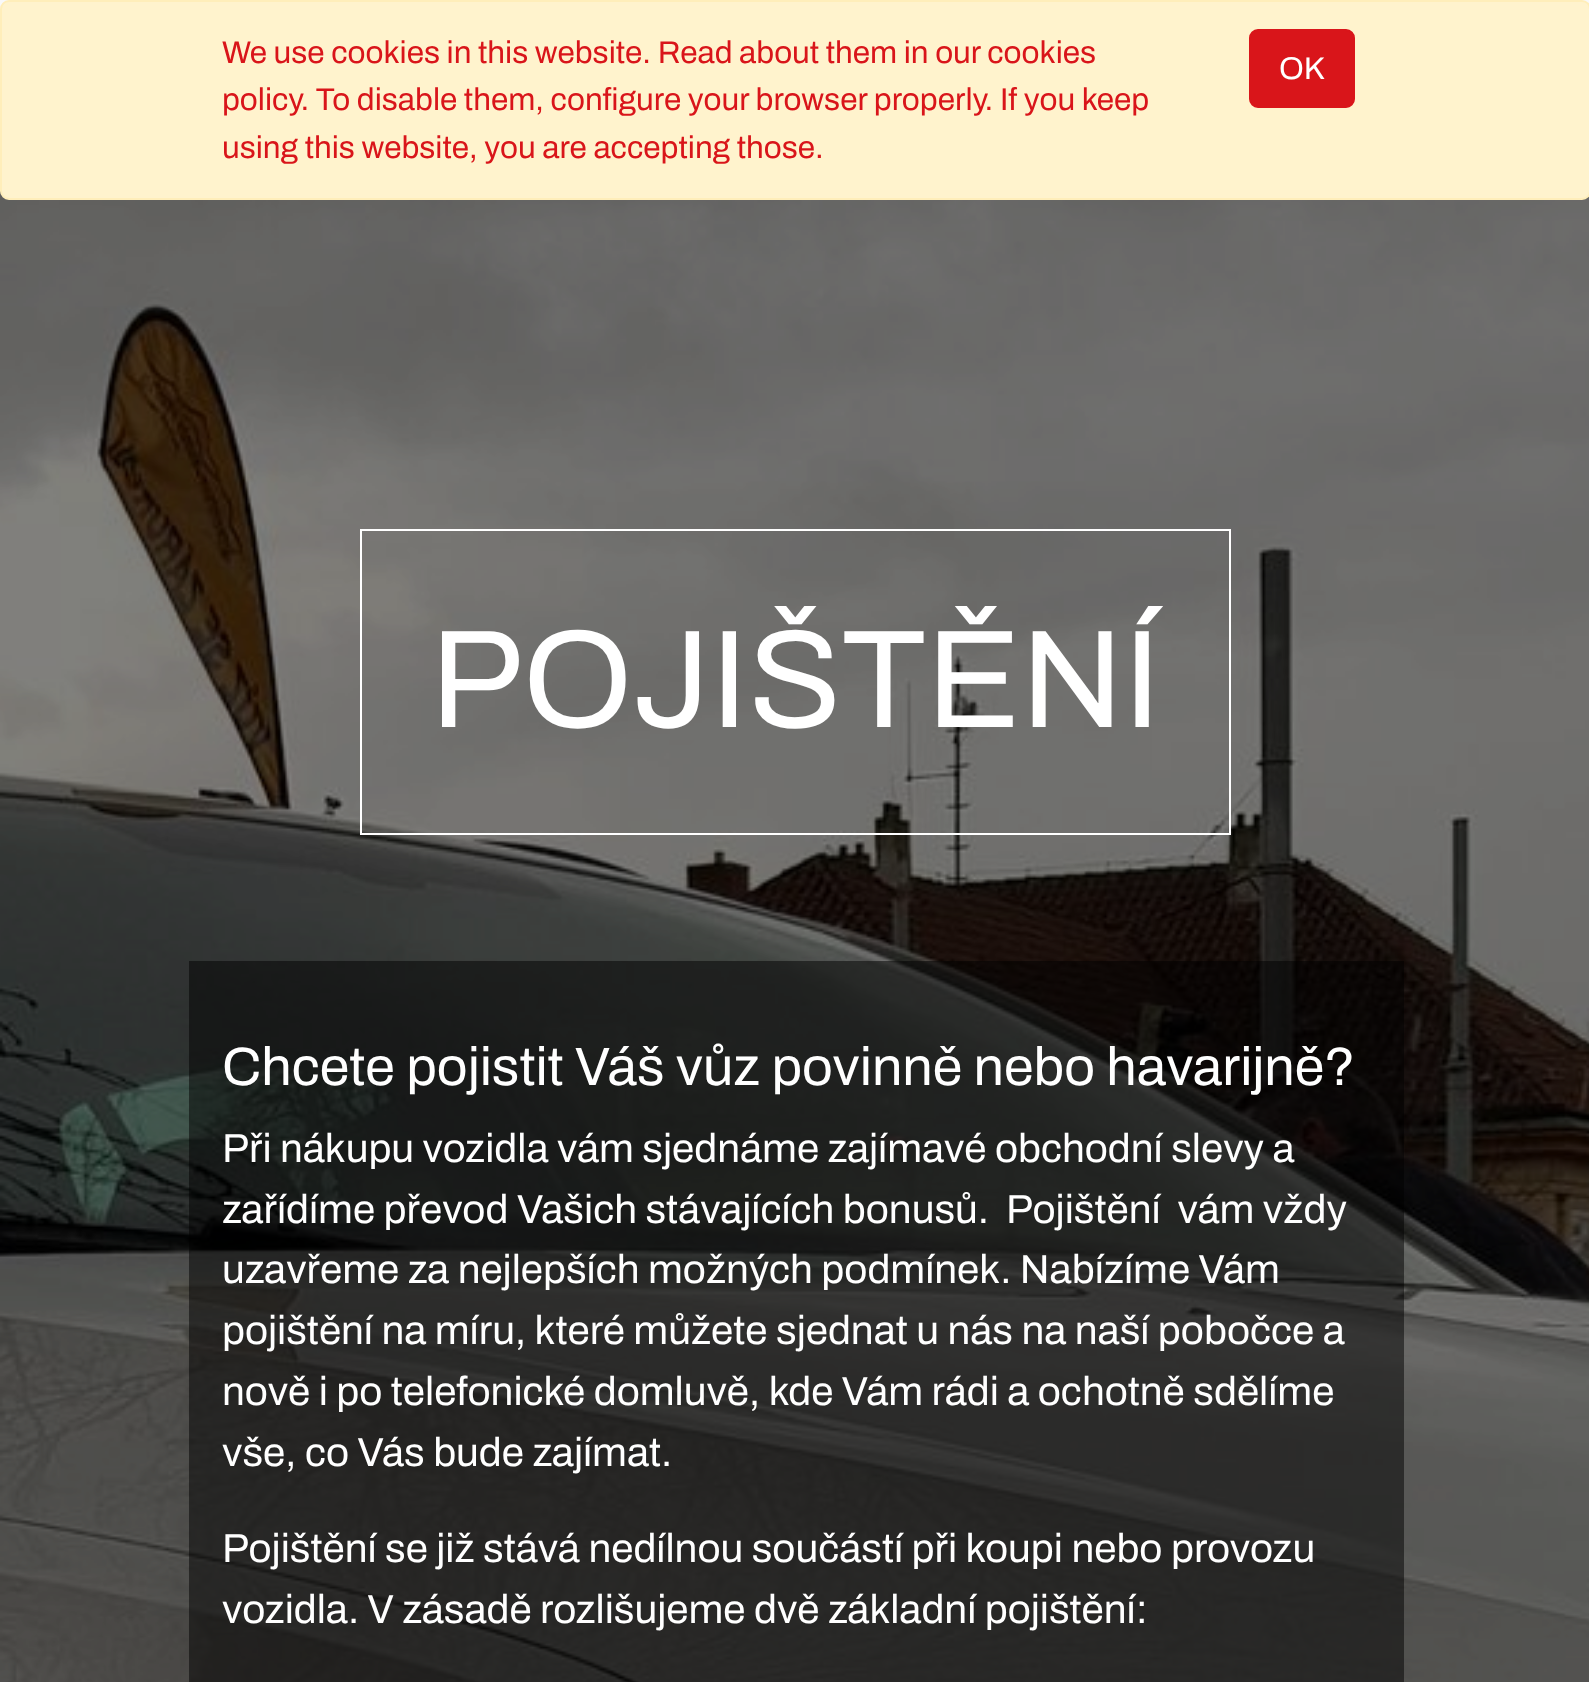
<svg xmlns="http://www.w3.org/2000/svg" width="1589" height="1682">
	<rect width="100%" height="100%" fill="#F9F9F9" />
	<image x="0" y="191" width="1589" height="1491" href="assets/img1.png" />
	<rect x="1" y="1" width="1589" height="198" rx="8" fill="#FFF3CD" stroke="#FFEEBA" stroke-width="2" />
	<g font-family="Archivo" font-size="31.5" fill="#D9151A">
		<text x="222" y="63">We use cookies in this website. Read about them in our cookies</text>
		<text x="222" y="110">policy. To disable them, configure your browser properly. If you keep</text>
		<text x="222" y="158">using this website, you are accepting those.</text>
	</g>
	<rect x="1250" y="30" width="104" height="77" rx="8" fill="#D9151A" stroke="#D9151A" stroke-width="2" />
	<text x="1279" y="79" font-family="Archivo" font-size="31.5" fill="#FFFFFF">OK</text>
	<rect x="361" y="530" width="869" height="304" fill="none" stroke="#FFFFFF" stroke-width="2" />
	<text x="430" y="727" font-family="Archivo" font-size="139.5" fill="#FFFFFF">POJIŠTĚNÍ</text>
	<rect x="189" y="961" width="1215" height="721" fill="#000000" fill-opacity="0.5" />
	<text x="222" y="1085" font-family="Archivo" font-size="54" fill="#FFFFFF">Chcete pojistit Váš vůz povinně nebo havarijně?</text>
	<g font-family="Archivo" font-size="40.5" fill="#FFFFFF">
		<text x="222" y="1162">Při nákupu vozidla vám sjednáme zajímavé obchodní slevy a</text>
		<text x="222" y="1223" xml:space="preserve">zařídíme převod Vašich stávajících bonusů.  Pojištění  vám vždy</text>
		<text x="222" y="1283">uzavřeme za nejlepších možných podmínek. Nabízíme Vám</text>
		<text x="222" y="1344">pojištění na míru, které můžete sjednat u nás na naší pobočce a</text>
		<text x="222" y="1405">nově i po telefonické domluvě, kde Vám rádi a ochotně sdělíme</text>
		<text x="222" y="1466">vše, co Vás bude zajímat.</text>
		<text x="222" y="1562">Pojištění se již stává nedílnou součástí při koupi nebo provozu</text>
		<text x="222" y="1623">vozidla. V zásadě rozlišujeme dvě základní pojištění:</text>
	</g>
</svg>
